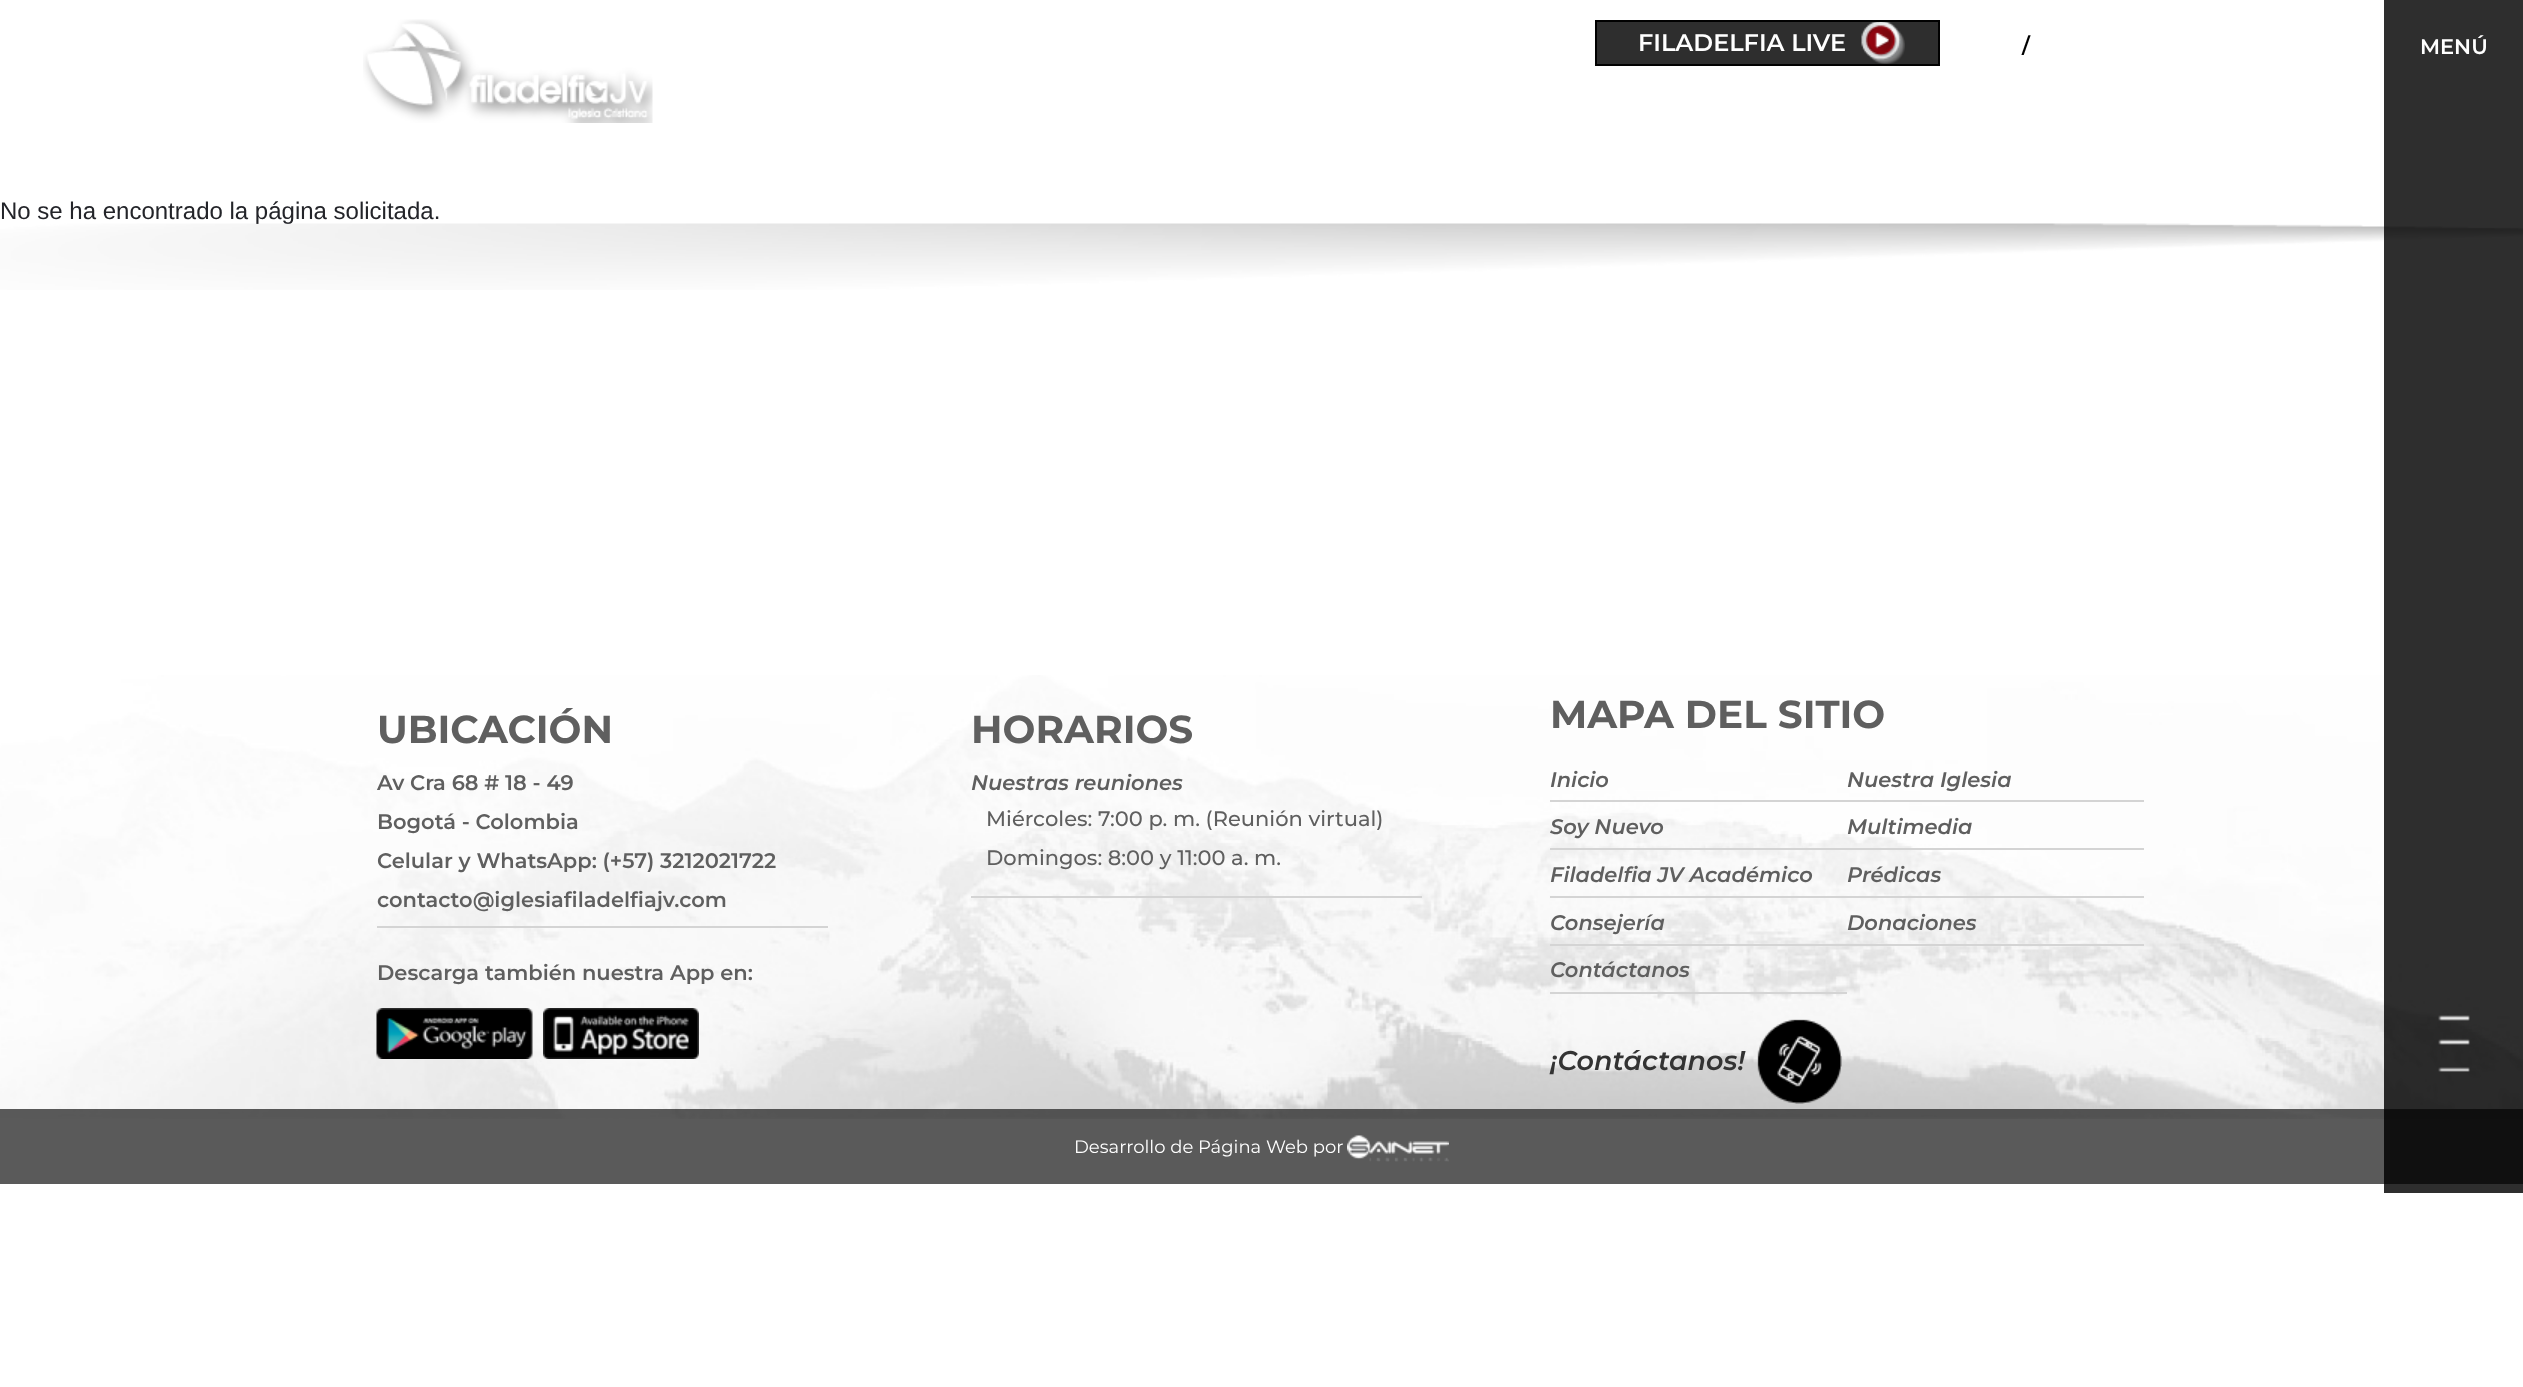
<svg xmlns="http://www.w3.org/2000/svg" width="2523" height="1387">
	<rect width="100%" height="100%" fill="#FFFFFF" />
	<image x="363" y="19" width="290" height="104" href="assets/img1.png" />
	<rect x="1597" y="22" width="341" height="42" fill="#2E2E2E" />
	<image x="1861" y="22" width="44" height="42" href="assets/img2.png" />
	<rect x="1596" y="21" width="343" height="44" fill="none" stroke="#010101" stroke-width="2" />
	<text x="1638" y="51" font-family="Montserrat" font-size="24" font-weight="600" fill="#FFFFFF">FILADELFIA LIVE</text>
	<text x="2022" y="53" font-family="Montserrat" font-size="21" font-weight="600" fill="#000000">/</text>
	<text x="0" y="219" font-family="Liberation Sans" font-size="24" fill="#232429">No se ha encontrado la página solicitada.</text>
	<image x="0" y="223" width="2523" height="67" href="assets/img4.png" />
	<image x="0" y="675" width="2523" height="444" href="assets/img5.png" />
	<rect x="0" y="1109" width="2523" height="75" fill="#363636" fill-opacity="0.82" />
	<rect x="2384" y="0" width="139" height="1193" fill="#000000" fill-opacity="0.82" />
	<text x="2420" y="54" font-family="Montserrat" font-size="21" font-weight="600" fill="#FFFFFF">MENÚ</text>
	<image x="2438" y="1015" width="32" height="57" href="assets/img3.png" />
	<text x="377" y="743" font-family="Montserrat" font-size="39" font-weight="700" fill="#5F5F5F">UBICACIÓN</text>
	<rect x="377" y="926" width="451" height="2" fill="#D4D4D4" />
	<g font-family="Montserrat" font-size="21" font-weight="600" fill="#5F5F5F">
		<text x="377" y="790">Av Cra 68 # 18 - 49</text>
		<text x="377" y="829">Bogotá - Colombia</text>
		<text x="377" y="868">Celular y WhatsApp: (+57) 3212021722</text>
		<text x="377" y="907">contacto@iglesiafiladelfiajv.com</text>
		<text x="377" y="980">Descarga también nuestra App en:</text>
	</g>
	<image x="376" y="1008" width="157" height="51" href="assets/img6.png" />
	<image x="543" y="1008" width="156" height="51" href="assets/img7.png" />
	<text x="971" y="743" font-family="Montserrat" font-size="39" font-weight="700" fill="#5F5F5F">HORARIOS</text>
	<rect x="971" y="896" width="451" height="2" fill="#D4D4D4" />
	<text x="971" y="790" font-family="Montserrat" font-size="21" font-weight="600" font-style="italic" fill="#5F5F5F">Nuestras reuniones</text>
	<g font-family="Montserrat" font-size="21" font-weight="500" fill="#5F5F5F">
		<text x="986" y="826">Miércoles: 7:00 p. m. (Reunión virtual)</text>
		<text x="986" y="865">Domingos: 8:00 y 11:00 a. m.</text>
	</g>
	<text x="1550" y="728" font-family="Montserrat" font-size="39" font-weight="700" fill="#5F5F5F">MAPA DEL SITIO</text>
	<rect x="1550" y="800" width="594" height="2" fill="#D4D4D4" />
	<g font-family="Montserrat" font-size="21" font-weight="600" font-style="italic" fill="#5F5F5F">
		<text x="1550" y="787">Inicio</text>
		<text x="1847" y="787">Nuestra Iglesia</text>
	</g>
	<rect x="1550" y="848" width="594" height="2" fill="#D4D4D4" />
	<g font-family="Montserrat" font-size="21" font-weight="600" font-style="italic" fill="#5F5F5F">
		<text x="1550" y="834">Soy Nuevo</text>
		<text x="1847" y="834">Multimedia</text>
	</g>
	<rect x="1550" y="896" width="594" height="2" fill="#D4D4D4" />
	<g font-family="Montserrat" font-size="21" font-weight="600" font-style="italic" fill="#5F5F5F">
		<text x="1550" y="882">Filadelfia JV Académico</text>
		<text x="1847" y="882">Prédicas</text>
	</g>
	<rect x="1550" y="944" width="594" height="2" fill="#D4D4D4" />
	<g font-family="Montserrat" font-size="21" font-weight="600" font-style="italic" fill="#5F5F5F">
		<text x="1550" y="930">Consejería</text>
		<text x="1847" y="930">Donaciones</text>
	</g>
	<rect x="1550" y="992" width="297" height="2" fill="#D4D4D4" />
	<text x="1550" y="977" font-family="Montserrat" font-size="21" font-weight="600" font-style="italic" fill="#5F5F5F">Contáctanos</text>
	<image x="1757" y="1019" width="85" height="85" href="assets/img8.png" />
	<text x="1550" y="1070" font-family="Montserrat" font-size="27" font-weight="600" font-style="italic" fill="#333333">¡Contáctanos!</text>
	<text x="1074" y="1153" font-family="Montserrat" font-size="18" fill="#FFFFFF">Desarrollo de Página Web por</text>
	<image x="1347" y="1135" width="102" height="27" href="assets/img9.png" />
</svg>
